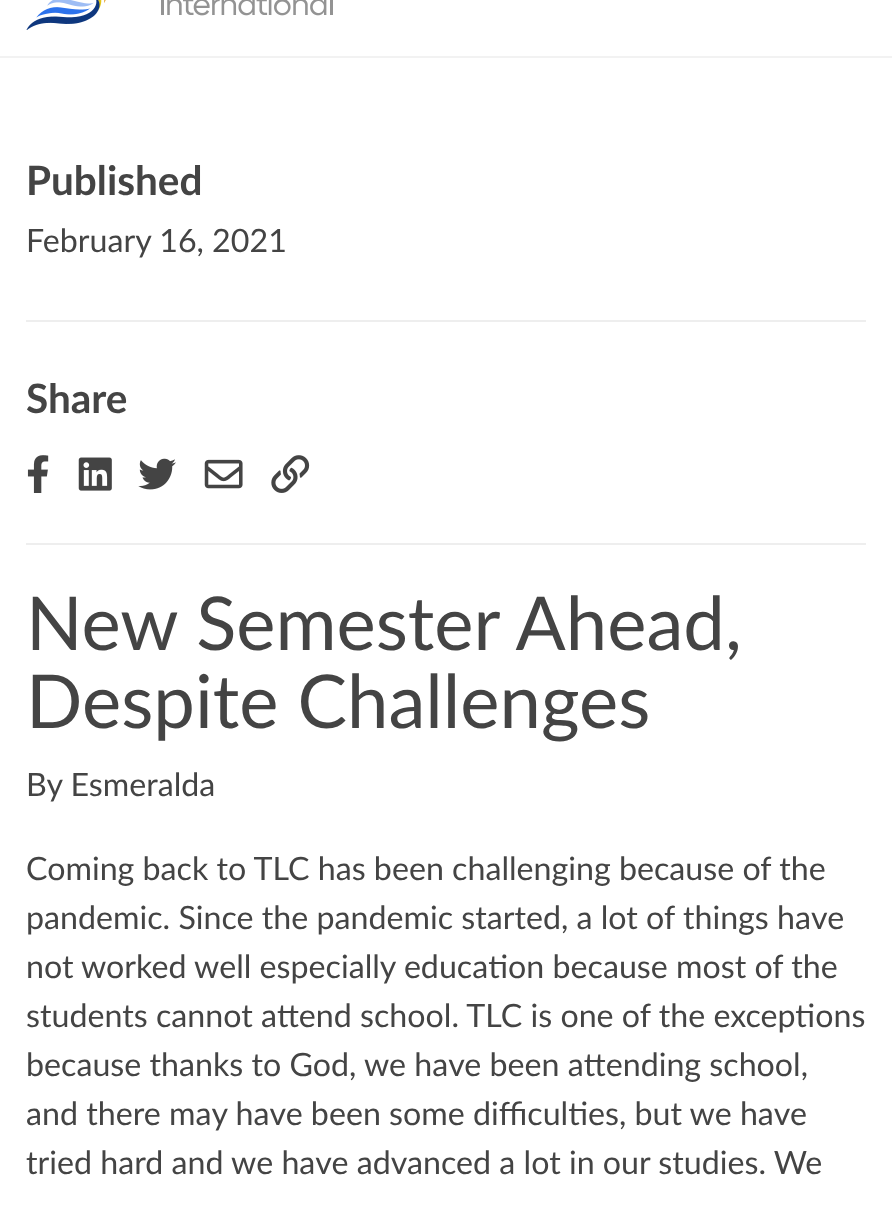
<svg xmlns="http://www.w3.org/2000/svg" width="892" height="1211">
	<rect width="100%" height="100%" fill="#FFFFFF" />
	<rect x="0" y="56" width="892" height="2" fill="#F2F2F2" />
	<image x="26" y="0" width="307" height="30" href="assets/img1.png" />
	<rect x="26" y="320" width="840" height="2" fill="#EEEEEE" />
	<text x="26" y="195" font-family="Lato" font-size="40.5" font-weight="700" fill="#444444">Published</text>
	<text x="26" y="252" font-family="Lato" font-size="32.2" fill="#444444">February 16, 2021</text>
	<rect x="26" y="543" width="840" height="2" fill="#EEEEEE" />
	<text x="26" y="413" font-family="Lato" font-size="40.5" font-weight="700" fill="#444444">Share</text>
	<image x="27" y="455" width="22" height="38" href="assets/img2.png" />
	<image x="78" y="457" width="34" height="34" href="assets/img3.png" />
	<image x="138" y="458" width="38" height="32" href="assets/img4.png" />
	<image x="204" y="459" width="39" height="30" href="assets/img5.png" />
	<image x="271" y="455" width="39" height="38" href="assets/img6.png" />
	<g font-family="Lato" font-size="74.25" fill="#444444">
		<text x="26" y="650">New Semester Ahead,</text>
		<text x="26" y="728">Despite Challenges</text>
	</g>
	<g font-family="Lato" font-size="32.2" fill="#444444">
		<text x="26" y="796">By Esmeralda</text>
		<text x="26" y="880">Coming back to TLC has been challenging because of the</text>
		<text x="26" y="929">pandemic. Since the pandemic started, a lot of things have</text>
		<text x="26" y="978">not worked well especially education because most of the</text>
		<text x="26" y="1027">students cannot attend school. TLC is one of the exceptions</text>
		<text x="26" y="1076">because thanks to God, we have been attending school,</text>
		<text x="26" y="1125">and there may have been some difficulties, but we have</text>
		<text x="26" y="1174">tried hard and we have advanced a lot in our studies. We</text>
	</g>
</svg>
